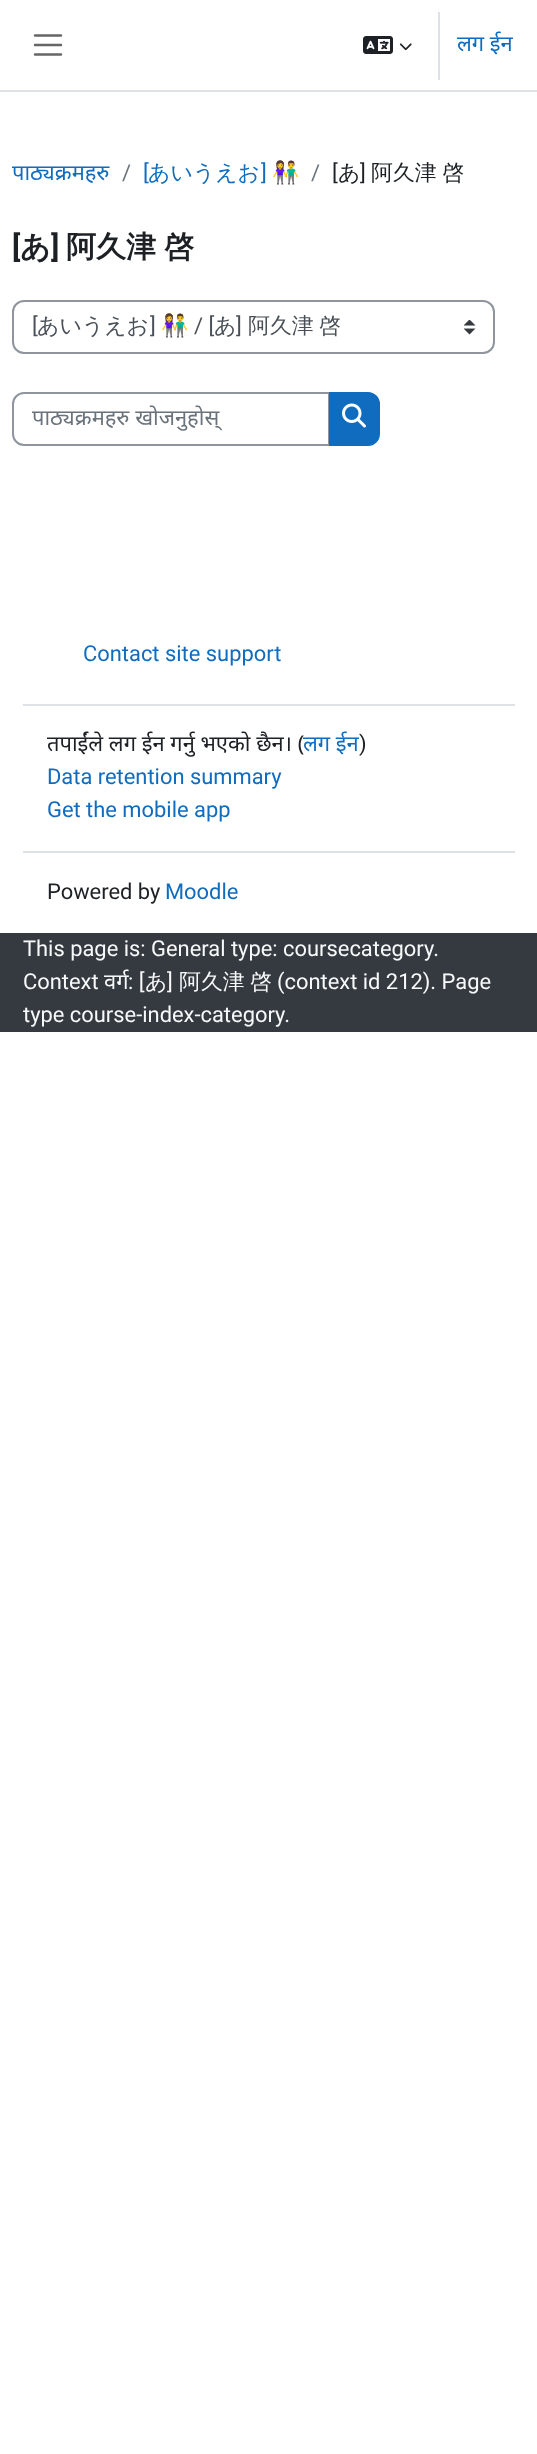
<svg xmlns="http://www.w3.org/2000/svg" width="537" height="2454">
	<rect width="100%" height="100%" fill="#FFFFFF" />
	<rect x="0" y="90" width="537" height="2" fill="#DEE2E6" />
	<path d="M35 35.5H61M35 45H61M35 54.5H61" fill="none" stroke="#666666" stroke-width="2.4" stroke-linecap="round" />
	<image x="363" y="36" width="30" height="18" href="assets/img1.png" />
	<image x="399" y="43" width="13" height="8" href="assets/img2.png" />
	<rect x="438" y="12" width="2" height="68" fill="#DEE2E6" />
	<g font-family="Noto Sans" font-size="21.9" fill="#0F6CBF">
		<text x="457" y="51">लग ईन</text>
		<text x="12" y="180">पाठ्यक्रमहरु</text>
	</g>
	<text x="122" y="180" font-family="Roboto" font-size="21.9" fill="#6A737B">/</text>
	<text x="143" y="180" font-family="Roboto" font-size="21.9" fill="#0F6CBF">[</text>
	<text x="148" y="180" font-family="WenQuanYi Zen Hei" font-size="21.9" font-weight="500" fill="#0F6CBF">あいうえお</text>
	<text x="261" y="180" font-family="Roboto" font-size="21.9" fill="#0F6CBF">]</text>
	<text x="272" y="180" font-family="Noto Color Emoji" font-size="21.9" fill="#0F6CBF">👫</text>
	<text x="311" y="180" font-family="Roboto" font-size="21.9" fill="#6A737B">/</text>
	<text x="332" y="180" font-family="Roboto" font-size="21.9" fill="#1D2125">[</text>
	<text x="338" y="180" font-family="WenQuanYi Zen Hei" font-size="21.9" font-weight="500" fill="#1D2125">あ</text>
	<text x="360" y="180" font-family="Roboto" font-size="21.9" fill="#1D2125">]</text>
	<text x="371" y="180" word-spacing="-1" font-family="WenQuanYi Zen Hei" font-size="21.9" font-weight="500" fill="#1D2125">阿久津 啓</text>
	<text x="12" y="257" font-family="Roboto" font-size="30" font-weight="700" fill="#1D2125">[</text>
	<text x="20" y="257" font-family="WenQuanYi Zen Hei" font-size="30" font-weight="700" fill="#1D2125">あ</text>
	<text x="51" y="257" font-family="Roboto" font-size="30" font-weight="700" fill="#1D2125">]</text>
	<text x="66" y="257" word-spacing="-1" font-family="WenQuanYi Zen Hei" font-size="30" font-weight="700" fill="#1D2125">阿久津 啓</text>
	<image x="464" y="320" width="12" height="15" href="assets/img3.png" />
	<rect x="13" y="301" width="481" height="52" rx="11" fill="none" stroke="#8F959E" stroke-width="2" />
	<text x="32" y="333" font-family="Roboto" font-size="21.9" fill="#495057">[</text>
	<text x="37" y="333" font-family="WenQuanYi Zen Hei" font-size="21.9" font-weight="500" fill="#495057">あいうえお</text>
	<text x="150" y="333" font-family="Roboto" font-size="21.9" fill="#495057">]</text>
	<text x="161" y="333" font-family="Noto Color Emoji" font-size="21.9" fill="#495057">👫</text>
	<text x="194" y="333" font-family="Roboto" font-size="21.9" fill="#495057">/ [</text>
	<text x="214" y="333" font-family="WenQuanYi Zen Hei" font-size="21.9" font-weight="500" fill="#495057">あ</text>
	<text x="236" y="333" font-family="Roboto" font-size="21.9" fill="#495057">]</text>
	<g font-family="WenQuanYi Zen Hei" font-size="21.9" font-weight="500" fill="#495057">
		<text x="248" y="333">阿久津</text>
		<text x="319" y="333">啓</text>
	</g>
	<path d="M24 393H329V445H24C18 445 13 440 13 434V404C13 398 18 393 24 393Z" fill="none" stroke="#8F959E" stroke-width="2" />
	<text x="32" y="425" font-family="Noto Sans" font-size="21.9" fill="#6A737B">पाठ्यक्रमहरु खोजनुहोस्</text>
	<path d="M330 393H368C374 393 379 398 379 404V434C379 440 374 445 368 445H330Z" fill="#0F6CBF" stroke="#0F6CBF" stroke-width="2" />
	<image x="342" y="403" width="24" height="25" href="assets/img4.png" />
	<rect x="23" y="704" width="492" height="2" fill="#DEE2E6" />
	<text x="83" y="661" font-family="Roboto" font-size="21.9" fill="#0F6CBF">Contact site support</text>
	<rect x="23" y="851" width="492" height="2" fill="#DEE2E6" />
	<text x="47" y="751" font-family="Noto Sans" font-size="21.9" fill="#1D2125">तपाईंले लग ईन गर्नु भएको छैन। (</text>
	<text x="303" y="751" font-family="Noto Sans" font-size="21.9" fill="#0F6CBF">लग ईन</text>
	<text x="359" y="751" font-family="Roboto" font-size="21.9" fill="#1D2125">)</text>
	<g font-family="Roboto" font-size="21.9" fill="#0F6CBF">
		<text x="47" y="784">Data retention summary</text>
		<text x="47" y="817">Get the mobile app</text>
	</g>
	<text x="47" y="899" font-family="Roboto" font-size="21.9" fill="#1D2125">Powered by</text>
	<text x="165" y="899" font-family="Roboto" font-size="21.9" fill="#0F6CBF">Moodle</text>
	<rect x="0" y="933" width="537" height="99" fill="#343A40" />
	<g font-family="Roboto" font-size="21.9" fill="#F8F9FA">
		<text x="23" y="956">This page is: General type: coursecategory.</text>
		<text x="23" y="989">Context</text>
	</g>
	<text x="104" y="989" font-family="Noto Sans" font-size="21.9" fill="#F8F9FA">वर्ग</text>
	<text x="128" y="989" font-family="Roboto" font-size="21.9" fill="#F8F9FA">: [</text>
	<text x="145" y="989" font-family="WenQuanYi Zen Hei" font-size="21.9" font-weight="500" fill="#F8F9FA">あ</text>
	<text x="167" y="989" font-family="Roboto" font-size="21.9" fill="#F8F9FA">]</text>
	<g font-family="WenQuanYi Zen Hei" font-size="21.9" font-weight="500" fill="#F8F9FA">
		<text x="179" y="989">阿久津</text>
		<text x="250" y="989">啓</text>
	</g>
	<g font-family="Roboto" font-size="21.9" fill="#F8F9FA">
		<text x="277" y="989">(context id 212). Page</text>
		<text x="23" y="1022">type course-index-category.</text>
	</g>
</svg>
